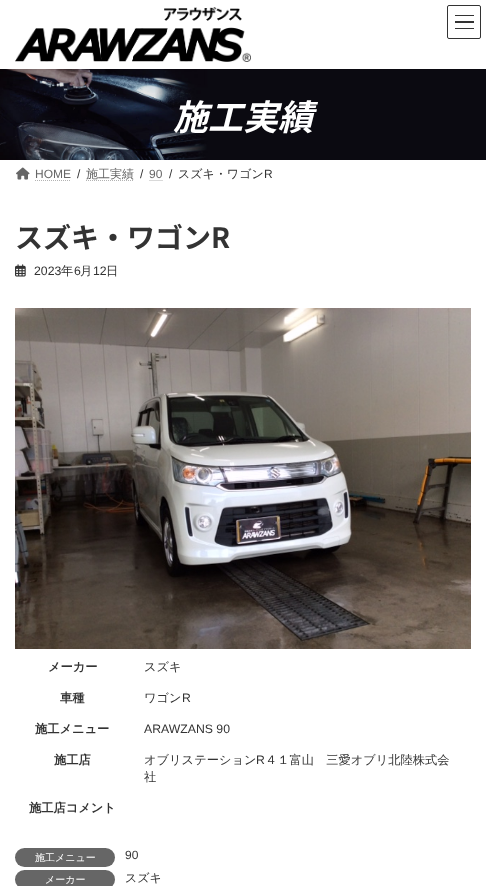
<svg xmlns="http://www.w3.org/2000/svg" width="486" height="886">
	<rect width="100%" height="100%" fill="#FFFFFF" />
	<image x="15" y="7" width="236" height="55" href="assets/img1.png" />
	<rect x="455" y="15" width="19" height="1" fill="#333333" />
	<rect x="455" y="21" width="19" height="2" fill="#333333" />
	<rect x="455" y="28" width="19" height="1" fill="#333333" />
	<rect x="447.5" y="5.5" width="33" height="33" rx="1.5" fill="none" stroke="#333333" />
	<image x="0" y="69" width="486" height="91" href="assets/img2.png" />
	<text x="173" y="130" font-family="Noto Sans JP" font-size="35" font-weight="100" font-style="italic" fill="#FFFFFF">施工実績</text>
	<image x="16" y="167" width="14" height="13" href="assets/img3.png" />
	<text x="35" y="178" font-family="Liberation Sans" font-size="12" fill="#666666">HOME</text>
	<path d="M35 180.5H71" fill="none" stroke="#B3B3B3" stroke-dasharray="1 1" />
	<text x="77" y="178" font-family="Liberation Sans" font-size="12" fill="#333333">/</text>
	<text x="86" y="178" font-family="WenQuanYi Zen Hei" font-size="12" font-weight="500" fill="#666666">施工実績</text>
	<path d="M86 180.5H134" fill="none" stroke="#B3B3B3" stroke-dasharray="1 1" />
	<text x="140" y="178" font-family="Liberation Sans" font-size="12" fill="#333333">/</text>
	<text x="149" y="178" font-family="Liberation Sans" font-size="12" fill="#666666">90</text>
	<path d="M149.5 180.5H163" fill="none" stroke="#B3B3B3" stroke-dasharray="1 1" />
	<text x="169" y="178" font-family="Liberation Sans" font-size="12" fill="#333333">/</text>
	<text x="178" y="178" font-family="WenQuanYi Zen Hei" font-size="12" font-weight="500" fill="#333333">スズキ・ワゴン</text>
	<text x="264" y="178" font-family="Liberation Sans" font-size="12" fill="#333333">R</text>
	<text x="15" y="248" font-family="Noto Sans JP" font-size="28" font-weight="100" fill="#333333">スズキ・ワゴンR</text>
	<image x="15" y="264" width="11" height="13" href="assets/img4.png" />
	<text x="34" y="275" font-family="Liberation Sans" font-size="12.25" fill="#333333">2023</text>
	<text x="61" y="275" font-family="WenQuanYi Zen Hei" font-size="12.25" font-weight="500" fill="#333333">年</text>
	<text x="74" y="275" font-family="Liberation Sans" font-size="12.25" fill="#333333">6</text>
	<text x="80" y="275" font-family="WenQuanYi Zen Hei" font-size="12.25" font-weight="500" fill="#333333">月</text>
	<text x="93" y="275" font-family="Liberation Sans" font-size="12.25" fill="#333333">12</text>
	<text x="106" y="275" font-family="WenQuanYi Zen Hei" font-size="12.25" font-weight="500" fill="#333333">日</text>
	<image x="15" y="308" width="456" height="341" href="assets/img5.png" />
	<text x="48" y="671" font-family="WenQuanYi Zen Hei" font-size="12.25" font-weight="700" fill="#333333">メーカー</text>
	<text x="144" y="671" font-family="WenQuanYi Zen Hei" font-size="12.25" font-weight="500" fill="#333333">スズキ</text>
	<text x="60" y="702" font-family="WenQuanYi Zen Hei" font-size="12.25" font-weight="700" fill="#333333">車種</text>
	<text x="144" y="702" font-family="WenQuanYi Zen Hei" font-size="12.25" font-weight="500" fill="#333333">ワゴン</text>
	<text x="182" y="702" font-family="Liberation Sans" font-size="12.25" fill="#333333">R</text>
	<text x="35" y="733" font-family="WenQuanYi Zen Hei" font-size="12.25" font-weight="700" fill="#333333">施工メニュー</text>
	<text x="144" y="733" font-family="Liberation Sans" font-size="12.25" fill="#333333">ARAWZANS 90</text>
	<text x="54" y="764" font-family="WenQuanYi Zen Hei" font-size="12.25" font-weight="700" fill="#333333">施工店</text>
	<text x="144" y="764" font-family="WenQuanYi Zen Hei" font-size="12.25" font-weight="500" fill="#333333">オブリステーション</text>
	<text x="256" y="764" font-family="Liberation Sans" font-size="12.25" fill="#333333">R</text>
	<g font-family="WenQuanYi Zen Hei" font-size="12.25" font-weight="500" fill="#333333">
		<text x="265" y="764">４１富山　三愛オブリ北陸株式会</text>
		<text x="144" y="781">社</text>
	</g>
	<text x="29" y="812" font-family="WenQuanYi Zen Hei" font-size="12.25" font-weight="700" fill="#333333">施工店コメント</text>
	<rect x="15" y="848" width="100" height="19" rx="9.5" fill="#666666" />
	<text x="35" y="861" font-family="WenQuanYi Zen Hei" font-size="10" font-weight="500" fill="#FFFFFF">施工メニュー</text>
	<text x="125" y="859" font-family="Liberation Sans" font-size="12" fill="#333333">90</text>
	<rect x="15" y="870" width="100" height="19" rx="9.5" fill="#666666" />
	<text x="45" y="883" font-family="WenQuanYi Zen Hei" font-size="10" font-weight="500" fill="#FFFFFF">メーカー</text>
	<text x="125" y="882" font-family="WenQuanYi Zen Hei" font-size="12" font-weight="500" fill="#333333">スズキ</text>
</svg>
